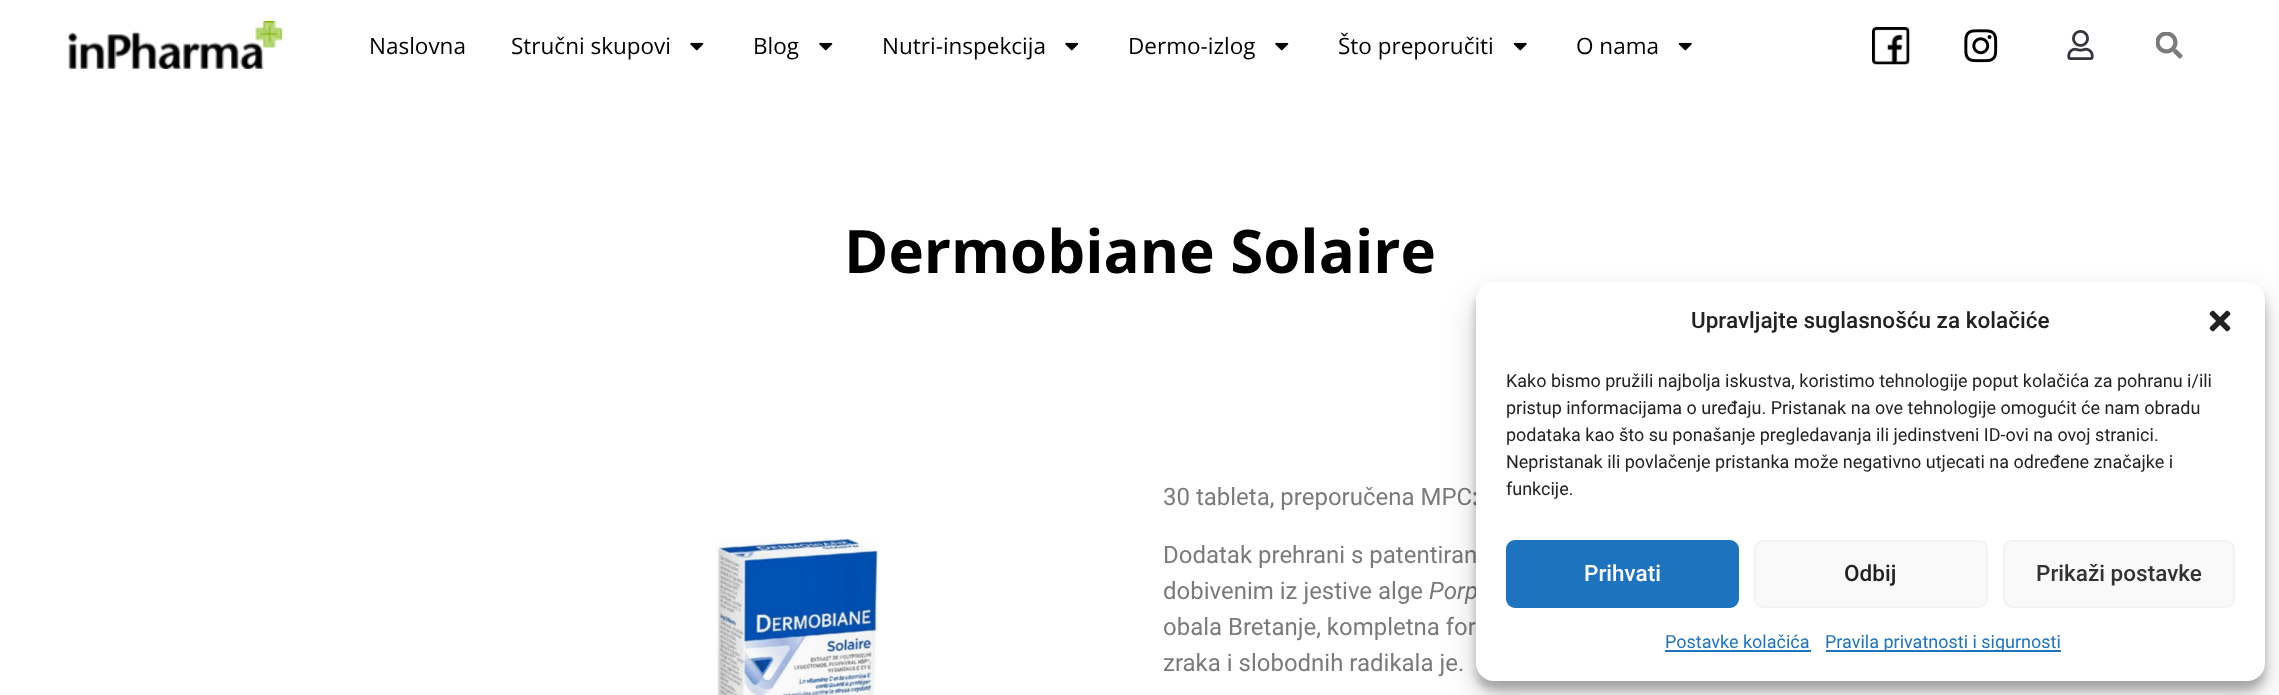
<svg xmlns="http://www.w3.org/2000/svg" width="2279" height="695">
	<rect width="100%" height="100%" fill="#FFFFFF" />
	<image x="68" y="21" width="216" height="48" href="assets/img1.png" />
	<g font-family="Open Sans" font-size="22.5" fill="#000000">
		<text x="369" y="54">Naslovna</text>
		<text x="511" y="54">Stručni skupovi</text>
	</g>
	<image x="690" y="42" width="14" height="9" href="assets/img2.png" />
	<text x="753" y="54" font-family="Open Sans" font-size="22.5" fill="#000000">Blog</text>
	<image x="819" y="42" width="14" height="9" href="assets/img2.png" />
	<text x="882" y="54" font-family="Open Sans" font-size="22.5" fill="#000000">Nutri-inspekcija</text>
	<image x="1065" y="42" width="14" height="9" href="assets/img2.png" />
	<text x="1128" y="54" font-family="Open Sans" font-size="22.5" fill="#000000">Dermo-izlog</text>
	<image x="1275" y="42" width="14" height="9" href="assets/img2.png" />
	<text x="1338" y="54" font-family="Open Sans" font-size="22.5" fill="#000000">Što preporučiti</text>
	<image x="1513" y="42" width="14" height="9" href="assets/img3.png" />
	<text x="1576" y="54" font-family="Open Sans" font-size="22.5" fill="#000000">O nama</text>
	<image x="1678" y="42" width="14" height="9" href="assets/img3.png" />
	<image x="1872" y="27" width="38" height="38" href="assets/img4.png" />
	<image x="1964" y="29" width="34" height="34" href="assets/img5.png" />
	<image x="2067" y="30" width="27" height="30" href="assets/img6.png" />
	<image x="2156" y="32" width="27" height="27" href="assets/img7.png" />
	<text x="844" y="273" font-family="Open Sans" font-size="60" font-weight="700" fill="#000000">Dermobiane Solaire</text>
	<image x="715" y="537" width="164" height="158" href="assets/img8.png" />
	<text x="1163" y="505" font-family="Roboto" font-size="24" fill="#7A7A7A">30 tableta, preporučena MPC</text>
	<text x="1472" y="505" font-family="Roboto" font-size="24" font-weight="700" fill="#7A7A7A">:</text>
	<g font-family="Roboto" font-size="24" fill="#7A7A7A">
		<text x="1163" y="563">Dodatak prehrani s patentiran</text>
		<text x="1163" y="599">dobivenim iz jestive alge</text>
	</g>
	<text x="1429" y="599" font-family="Roboto" font-size="24" font-style="italic" fill="#7A7A7A">Porp</text>
	<g font-family="Roboto" font-size="24" fill="#7A7A7A">
		<text x="1163" y="635">obala Bretanje, kompletna for</text>
		<text x="1163" y="671">zraka i slobodnih radikala je.</text>
	</g>
	<rect x="1476" y="291" width="789" height="399" rx="18" fill="#000000" fill-opacity="0.23" filter="blur(4.5px)" />
	<rect x="1476" y="297" width="789" height="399" rx="18" fill="#000000" fill-opacity="0.19" filter="blur(15px)" />
	<rect x="1476" y="282" width="789" height="399" rx="18" fill="#FFFFFF" />
	<text x="1691" y="328" font-family="Roboto" font-size="22.5" font-weight="500" fill="#222222">Upravljajte suglasnošću za kolačiće</text>
	<image x="2209" y="310" width="22" height="22" href="assets/img9.png" />
	<g font-family="Roboto" font-size="18" fill="#222222">
		<text x="1506" y="387">Kako bismo pružili najbolja iskustva, koristimo tehnologije poput kolačića za pohranu i/ili</text>
		<text x="1506" y="414">pristup informacijama o uređaju. Pristanak na ove tehnologije omogućit će nam obradu</text>
		<text x="1506" y="441">podataka kao što su ponašanje pregledavanja ili jedinstveni ID-ovi na ovoj stranici.</text>
		<text x="1506" y="468">Nepristanak ili povlačenje pristanka može negativno utjecati na određene značajke i</text>
		<text x="1506" y="495">funkcije.</text>
	</g>
	<rect x="1507" y="541" width="231" height="66" rx="8" fill="#1E73BE" stroke="#1E73BE" stroke-width="2" />
	<text x="1584" y="581" font-family="Roboto" font-size="22.5" font-weight="500" fill="#FFFFFF">Prihvati</text>
	<rect x="1755" y="541" width="232" height="66" rx="8" fill="#F9F9F9" stroke="#F2F2F2" stroke-width="2" />
	<text x="1844" y="581" font-family="Roboto" font-size="22.5" font-weight="500" fill="#222222">Odbij</text>
	<rect x="2004" y="541" width="230" height="66" rx="8" fill="#F9F9F9" stroke="#F2F2F2" stroke-width="2" />
	<text x="2036" y="581" font-family="Roboto" font-size="22.5" font-weight="500" fill="#333333">Prikaži postavke</text>
	<text x="1665" y="648" font-family="Roboto" font-size="18" fill="#1E73BE">Postavke kolačića</text>
	<rect x="1665" y="650" width="146" height="2" fill="#1E73BE" />
	<rect x="1826" y="650" width="235" height="2" fill="#1E73BE" />
	<text x="1825" y="648" font-family="Roboto" font-size="18" fill="#1E73BE">Pravila privatnosti i sigurnosti</text>
</svg>
